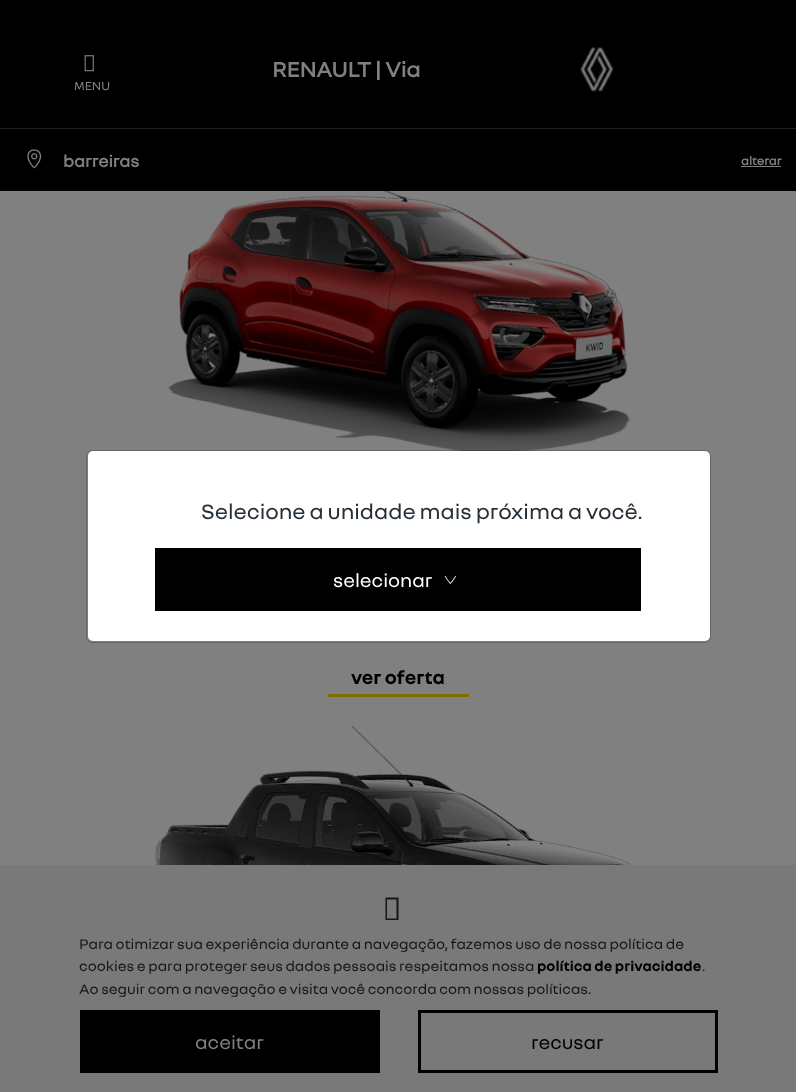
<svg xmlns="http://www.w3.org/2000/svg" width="796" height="1092">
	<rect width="100%" height="100%" fill="#808080" />
	<rect x="0" y="0" width="796" height="191" fill="#000000" />
	<rect x="0" y="128" width="796" height="1" fill="#202020" />
	<text x="272" y="77" font-family="'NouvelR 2'" font-size="22.5" font-weight="700" fill="#808080">RENAULT | Via</text>
	<image x="580" y="46" width="34" height="46" href="assets/img1.png" />
	<image x="84" y="55" width="10" height="17" href="assets/img2.png" />
	<text x="74" y="90" font-family="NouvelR" font-size="12.5" fill="#808080">MENU</text>
	<image x="27" y="149" width="15" height="20" href="assets/img3.png" />
	<text x="63" y="167" font-family="'NouvelR 2'" font-size="17.5" font-weight="700" fill="#808080">barreiras</text>
	<text x="741" y="165" font-family="'NouvelR 2'" font-size="12.5" font-weight="700" fill="#808080">alterar</text>
	<rect x="741" y="166" width="40" height="1" fill="#808080" />
	<rect x="88" y="451" width="622" height="190" rx="5" fill="#FFFFFF" />
	<image x="168" y="191" width="462" height="260" href="assets/img5.png" />
	<rect x="86.5" y="450.5" width="624" height="192" rx="5.5" fill="none" stroke="#000000" stroke-opacity="0.2" />
	<text x="201" y="519" font-family="NouvelR" font-size="22.5" fill="#252F38">Selecione a unidade mais próxima a você.</text>
	<rect x="155" y="548" width="486" height="63" fill="#000000" />
	<text x="333" y="587" font-family="NouvelR" font-size="20" fill="#FFFFFF">selecionar</text>
	<image x="444" y="576" width="12" height="8" href="assets/img4.png" />
	<rect x="328" y="694" width="141" height="3" fill="#787000" />
	<text x="351" y="684" font-family="NouvelR" font-size="20" font-weight="700" fill="#000000">ver oferta</text>
	<image x="155" y="725" width="477" height="140" href="assets/img6.png" />
	<rect x="0" y="865" width="796" height="227" fill="#797979" />
	<path d="M385.5 920V897.5H398.5V920ZM387 918.5H396.5V899.5H387Z" fill="#13181C" />
	<g font-family="NouvelR" font-size="15" fill="#13181C">
		<text x="79" y="949">Para otimizar sua experiência durante a navegação, fazemos uso de nossa política de</text>
		<text x="79" y="971">cookies e para proteger seus dados pessoais respeitamos nossa</text>
	</g>
	<text x="537" y="971" font-family="NouvelR" font-size="15" font-weight="700" fill="#000000">política de privacidade</text>
	<g font-family="NouvelR" font-size="15" fill="#13181C">
		<text x="702" y="971">.</text>
		<text x="79" y="994">Ao seguir com a navegação e visita você concorda com nossas políticas.</text>
	</g>
	<rect x="80" y="1010" width="300" height="63" fill="#000000" />
	<text x="195" y="1049" font-family="NouvelR" font-size="20" fill="#808080">aceitar</text>
	<rect x="419.5" y="1011.5" width="297" height="60" fill="none" stroke="#000000" stroke-width="3" />
	<text x="531" y="1049" font-family="NouvelR" font-size="20" fill="#000000">recusar</text>
</svg>
